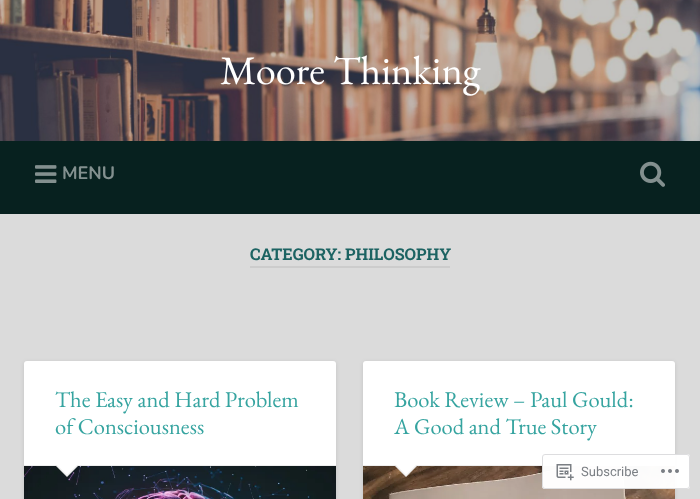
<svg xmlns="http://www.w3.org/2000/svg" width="700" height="499">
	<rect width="100%" height="100%" fill="#DBDBDB" />
	<image x="0" y="0" width="700" height="141" href="assets/img1.png" />
	<text x="220" y="84" font-family="EB Garamond" font-size="40.5" fill="#FFFFFF">Moore Thinking</text>
	<rect x="0" y="141" width="700" height="73" fill="#07211F" />
	<image x="35" y="165" width="22" height="18" href="assets/img2.png" />
	<text x="62" y="179" font-family="Nunito" font-size="18" font-weight="700" fill="#83908F">MENU</text>
	<image x="640" y="161" width="25" height="26" href="assets/img3.png" />
	<rect x="250" y="266" width="200" height="2" fill="#CCCCCC" />
	<text x="250" y="260" font-family="Roboto Slab" font-size="16.25" font-weight="700" fill="#1C6362">CATEGORY: PHILOSOPHY</text>
	<rect x="24" y="362" width="312" height="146" rx="3" fill="#000000" fill-opacity="0.1" filter="blur(2px)" />
	<rect x="24" y="361" width="312" height="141" rx="3" fill="#FFFFFF" />
	<rect x="24" y="465" width="312" height="1" fill="#EEEEEE" />
	<g font-family="EB Garamond" font-size="22.5" fill="#36A4A0">
		<text x="55" y="407">The Easy and Hard Problem</text>
		<text x="55" y="434">of Consciousness</text>
	</g>
	<image x="24" y="466" width="312" height="33" href="assets/img4.png" />
	<path d="M55 465H79L67 477Z" fill="#EEEEEE" />
	<path d="M56 464H78L67 475Z" fill="#FFFFFF" />
	<rect x="363" y="362" width="312" height="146" rx="3" fill="#000000" fill-opacity="0.1" filter="blur(2px)" />
	<rect x="363" y="361" width="312" height="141" rx="3" fill="#FFFFFF" />
	<rect x="363" y="465" width="312" height="1" fill="#EEEEEE" />
	<g font-family="EB Garamond" font-size="22.5" fill="#36A4A0">
		<text x="394" y="407">Book Review – Paul Gould:</text>
		<text x="394" y="434">A Good and True Story</text>
	</g>
	<image x="363" y="466" width="312" height="33" href="assets/img5.png" />
	<path d="M394 465H418L406 477Z" fill="#EEEEEE" />
	<path d="M395 464H417L406 475Z" fill="#FFFFFF" />
	<rect x="542" y="454" width="148" height="35" rx="3" fill="#FFFFFF" fill-opacity="0.98" />
	<rect x="542.5" y="454.5" width="147" height="34" rx="2.5" fill="none" stroke="#DCDCDE" stroke-opacity="0.98" />
	<image x="556" y="464" width="18" height="17" href="assets/img6.png" />
	<text x="581" y="476" font-family="Roboto" font-size="13" fill="#7B7F84">Subscribe</text>
	<image x="661" y="469" width="18" height="4" href="assets/img7.png" />
</svg>
